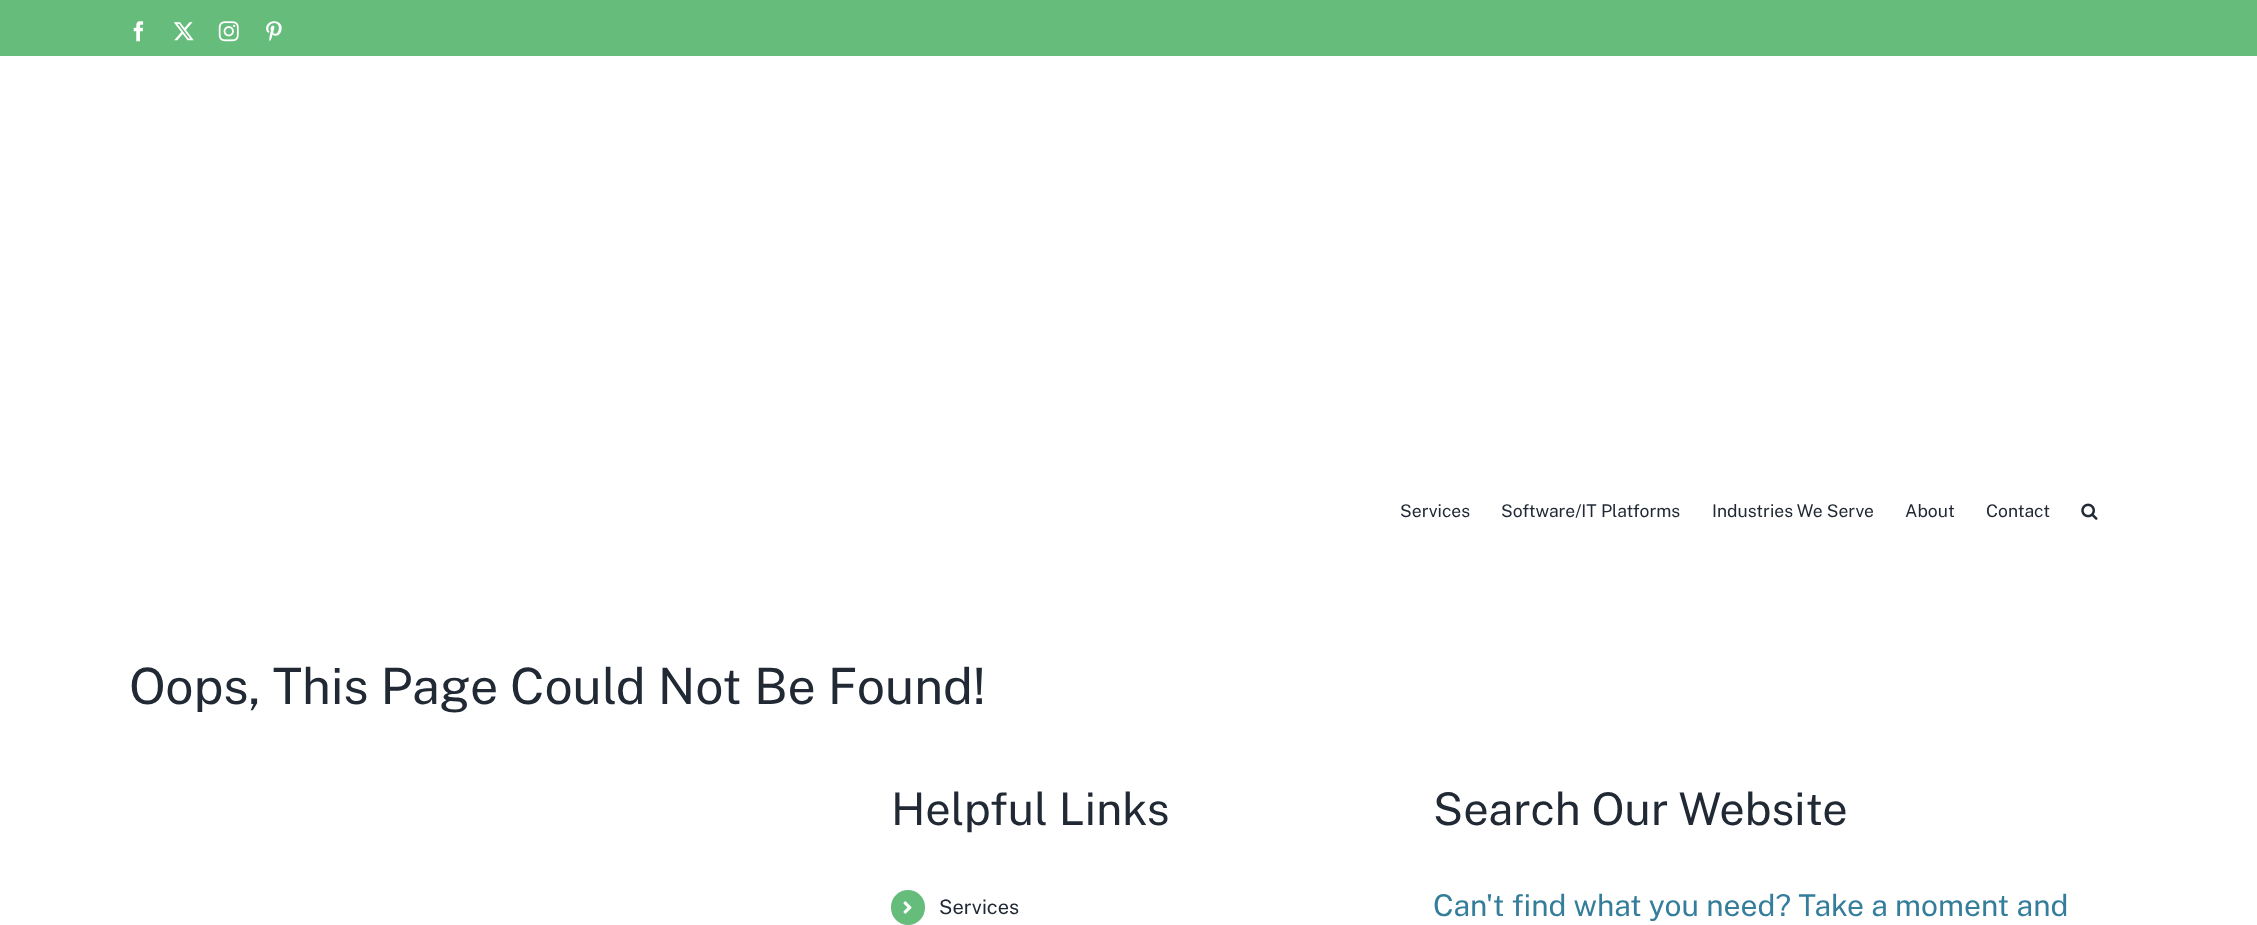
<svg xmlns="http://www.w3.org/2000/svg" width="2257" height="925">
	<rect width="100%" height="100%" fill="#FFFFFF" />
	<rect x="0" y="0" width="2257" height="56" fill="#65BC7B" />
	<image x="133" y="21" width="11" height="21" href="assets/img1.png" />
	<image x="173" y="22" width="21" height="19" href="assets/img2.png" />
	<image x="218" y="21" width="21" height="21" href="assets/img3.png" />
	<image x="266" y="21" width="16" height="21" href="assets/img4.png" />
	<g font-family="Public Sans" font-size="17.5" fill="#212934">
		<text x="1400" y="517">Services</text>
		<text x="1501" y="517">Software/IT Platforms</text>
		<text x="1712" y="517">Industries We Serve</text>
		<text x="1905" y="517">About</text>
		<text x="1986" y="517">Contact</text>
	</g>
	<image x="2081" y="503" width="17" height="17" href="assets/img5.png" />
	<text x="129" y="704" font-family="Public Sans" font-size="50" fill="#212934">Oops, This Page Could Not Be Found!</text>
	<text x="891" y="825" font-family="Public Sans" font-size="45" fill="#212934">Helpful Links</text>
	<rect x="891" y="890" width="34" height="35" rx="17" fill="#65BC7B" />
	<image x="903" y="901" width="9" height="13" href="assets/img6.png" />
	<text x="939" y="914" font-family="Public Sans" font-size="20" fill="#212934">Services</text>
	<text x="1433" y="825" font-family="Public Sans" font-size="45" fill="#212934">Search Our Website</text>
	<text x="1433" y="916" font-family="Public Sans" font-size="30" fill="#347D9B">Can't find what you need? Take a moment and</text>
</svg>
